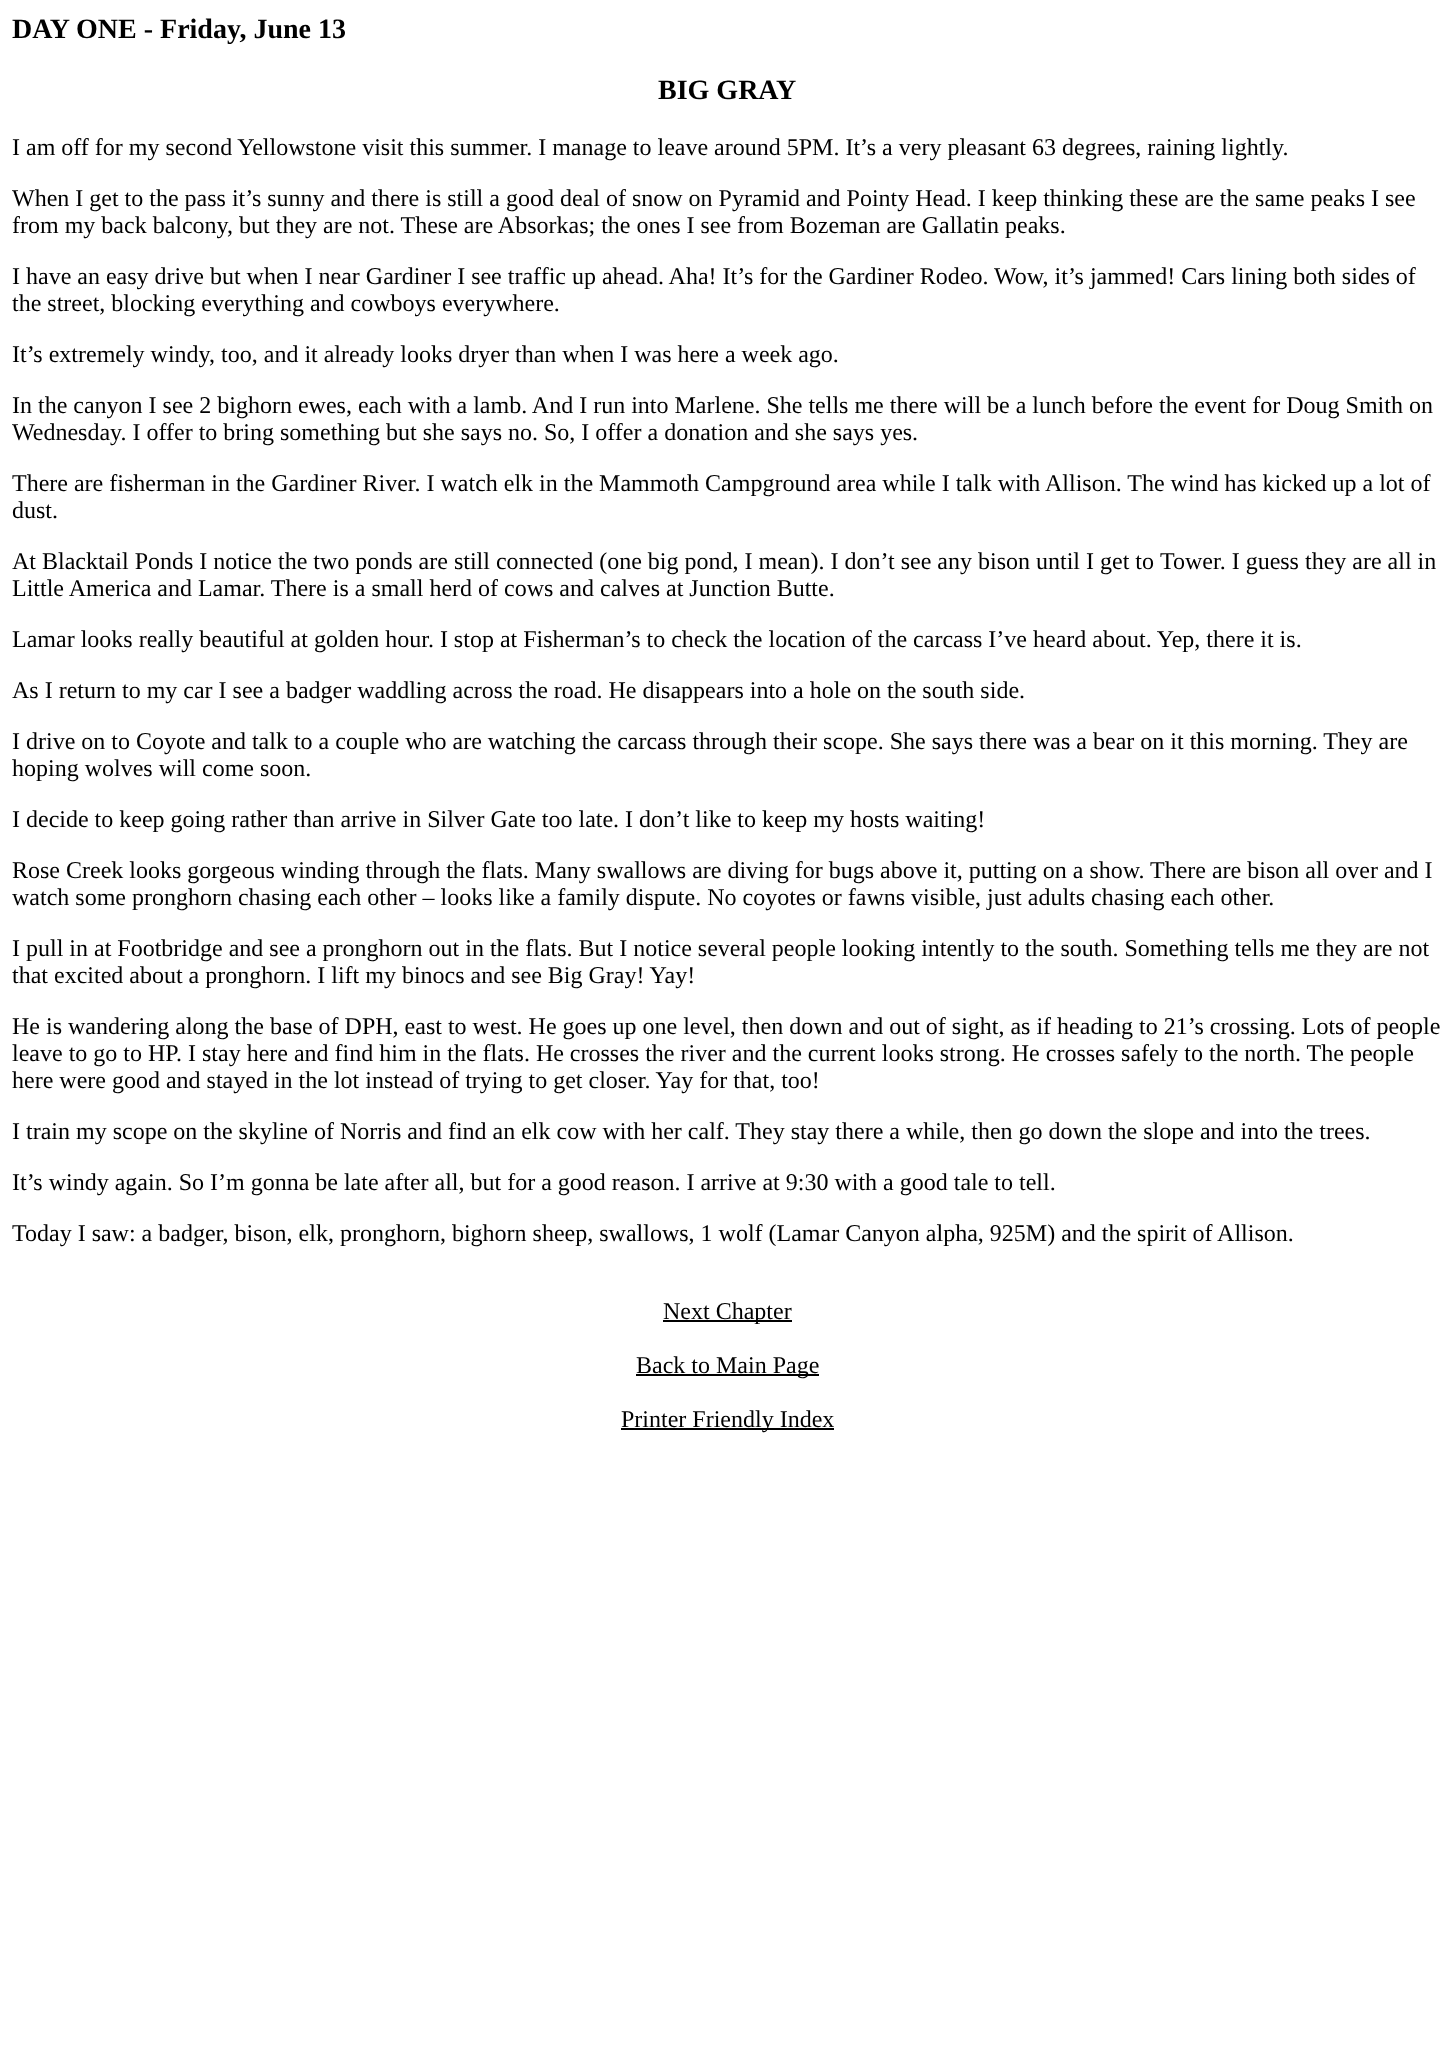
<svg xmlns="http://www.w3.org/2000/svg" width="1454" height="2060">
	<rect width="100%" height="100%" fill="#FFFFFF" />
	<g font-family="Liberation Serif" font-size="28" font-weight="700" fill="#000000">
		<text x="12" y="38">DAY ONE - Friday, June 13</text>
		<text x="658" y="99">BIG GRAY</text>
	</g>
	<g font-family="Liberation Serif" font-size="24" fill="#000000">
		<text x="12" y="155">I am off for my second Yellowstone visit this summer. I manage to leave around 5PM. It’s a very pleasant 63 degrees, raining lightly.</text>
		<text x="12" y="206">When I get to the pass it’s sunny and there is still a good deal of snow on Pyramid and Pointy Head. I keep thinking these are the same peaks I see</text>
		<text x="12" y="233">from my back balcony, but they are not. These are Absorkas; the ones I see from Bozeman are Gallatin peaks.</text>
		<text x="12" y="284">I have an easy drive but when I near Gardiner I see traffic up ahead. Aha! It’s for the Gardiner Rodeo. Wow, it’s jammed! Cars lining both sides of</text>
		<text x="12" y="311">the street, blocking everything and cowboys everywhere.</text>
		<text x="12" y="362">It’s extremely windy, too, and it already looks dryer than when I was here a week ago.</text>
		<text x="12" y="413">In the canyon I see 2 bighorn ewes, each with a lamb. And I run into Marlene. She tells me there will be a lunch before the event for Doug Smith on</text>
		<text x="12" y="440">Wednesday. I offer to bring something but she says no. So, I offer a donation and she says yes.</text>
		<text x="12" y="491">There are fisherman in the Gardiner River. I watch elk in the Mammoth Campground area while I talk with Allison. The wind has kicked up a lot of</text>
		<text x="12" y="518">dust.</text>
		<text x="12" y="569">At Blacktail Ponds I notice the two ponds are still connected (one big pond, I mean). I don’t see any bison until I get to</text>
		<text x="1160" y="569">Tower. I guess they are all in</text>
		<text x="12" y="596">Little America and Lamar. There is a small herd of cows and calves at Junction Butte.</text>
		<text x="12" y="647">Lamar looks really beautiful at golden hour. I stop at Fisherman’s to check the location of the carcass I’ve heard about. Yep, there it is.</text>
		<text x="12" y="698">As I return to my car I see a badger waddling across the road. He disappears into a hole on the south side.</text>
		<text x="12" y="749">I drive on to Coyote and talk to a couple who are watching the carcass through their scope. She says there was a bear on it this morning. They are</text>
		<text x="12" y="776">hoping wolves will come soon.</text>
		<text x="12" y="827">I decide to keep going rather than arrive in Silver Gate too late. I don’t like to keep my hosts waiting!</text>
		<text x="12" y="878">Rose Creek looks gorgeous winding through the flats. Many swallows are diving for bugs above it, putting on a show.</text>
		<text x="1150" y="878">There are bison all over and I</text>
		<text x="12" y="905">watch some pronghorn chasing each other – looks like a family dispute. No coyotes or fawns visible, just adults chasing each other.</text>
		<text x="12" y="956">I pull in at Footbridge and see a pronghorn out in the flats. But I notice several people looking intently to the south. Something tells me they are not</text>
		<text x="12" y="983">that excited about a pronghorn. I lift my binocs and see Big Gray! Yay!</text>
		<text x="12" y="1034">He is wandering along the base of DPH, east to west. He goes up one level, then down and out of sight, as if heading to 21’s crossing. Lots of people</text>
		<text x="12" y="1061">leave to go to HP. I stay here and find him in the flats. He crosses the river and the current looks strong. He crosses safely to the north. The people</text>
		<text x="12" y="1088">here were good and stayed in the lot instead of trying to get closer. Yay for that, too!</text>
		<text x="12" y="1139">I train my scope on the skyline of Norris and find an elk cow with her calf. They stay there a while, then go down the slope and into the trees.</text>
		<text x="12" y="1190">It’s windy again. So I’m gonna be late after all, but for a good reason. I arrive at 9:30 with a good tale to tell.</text>
		<text x="12" y="1241">Today I saw: a badger, bison, elk, pronghorn, bighorn sheep, swallows, 1 wolf (Lamar Canyon alpha, 925M) and the spirit of Allison.</text>
	</g>
	<rect x="663" y="1320" width="129" height="2" fill="#000000" />
	<text x="663" y="1319" font-family="Liberation Serif" font-size="24" fill="#000000">Next Chapter</text>
	<rect x="636" y="1374" width="183" height="2" fill="#000000" />
	<text x="636" y="1373" font-family="Liberation Serif" font-size="24" fill="#000000">Back to Main Page</text>
	<rect x="621" y="1428" width="213" height="2" fill="#000000" />
	<text x="621" y="1427" font-family="Liberation Serif" font-size="24" fill="#000000">Printer Friendly Index</text>
</svg>
